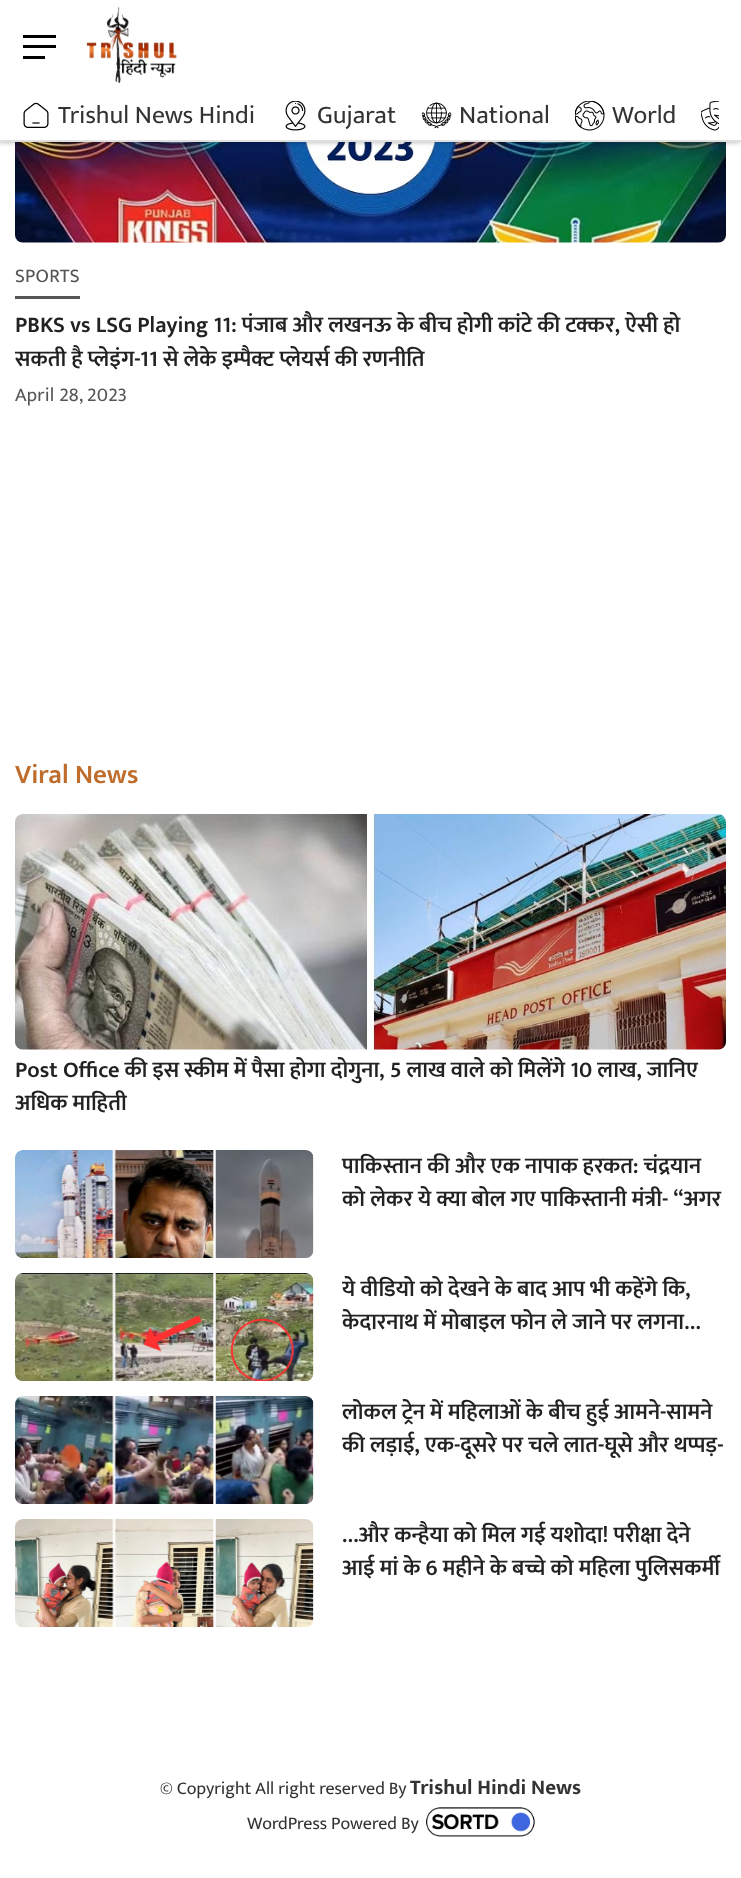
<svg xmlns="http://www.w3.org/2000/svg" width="741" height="1878">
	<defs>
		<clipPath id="clip1"><rect x="15" y="308" width="711" height="69" /></clipPath>
		<clipPath id="clip2"><rect x="342" y="1151" width="384" height="66" /></clipPath>
		<clipPath id="clip3"><rect x="342" y="1274" width="384" height="66" /></clipPath>
		<clipPath id="clip4"><rect x="342" y="1397" width="384" height="66" /></clipPath>
	</defs>
	<rect width="100%" height="100%" fill="#FFFFFF" />
	<image x="15" y="142" width="711" height="101" href="assets/img7.png" />
	<rect x="-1" y="2" width="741" height="141" fill="#000000" fill-opacity="0.23" filter="blur(2px)" />
	<rect x="0" y="0" width="741" height="140" fill="#FFFFFF" />
	<rect x="0" y="140" width="741" height="2" fill="#DFDFDF" />
	<rect x="23" y="45" width="33" height="3" fill="#000000" />
	<rect x="23" y="35" width="33" height="3" fill="#000000" />
	<rect x="23" y="56" width="22" height="3" fill="#000000" />
	<image x="86" y="6" width="91" height="77" href="assets/img1.png" />
	<image x="23" y="102" width="26" height="26" href="assets/img2.png" />
	<text x="58" y="123" font-family="Mukta" font-size="25.5" fill="#333333">Trishul News Hindi</text>
	<image x="285" y="101" width="21" height="30" href="assets/img3.png" />
	<text x="317" y="123" font-family="Mukta" font-size="25.5" fill="#333333">Gujarat</text>
	<image x="422" y="102" width="30" height="27" href="assets/img4.png" />
	<text x="459" y="123" font-family="Mukta" font-size="25.5" fill="#333333">National</text>
	<image x="575" y="101" width="30" height="30" href="assets/img5.png" />
	<text x="612" y="123" font-family="Mukta" font-size="25.5" fill="#333333">World</text>
	<image x="701" y="101" width="18" height="30" href="assets/img6.png" />
	<text x="15" y="282" font-family="Mukta" font-size="19.5" letter-spacing="0.25" fill="#555555">SPORTS</text>
	<rect x="15" y="296" width="65" height="3" fill="#555555" />
	<text x="15" y="332" font-family="Mukta" font-size="22.5" font-weight="600" fill="#222222">PBKS vs LSG Playing 11: पंजाब और लखनऊ के बीच होगी कांटे की टक्कर, ऐसी हो</text>
	<g clip-path="url(#clip1)">
		<text x="15" y="366" font-family="Mukta" font-size="22.5" font-weight="600" fill="#222222">सकती है प्लेइंग-11 से लेके इम्पैक्ट प्लेयर्स की रणनीति</text>
	</g>
	<text x="15" y="401" font-family="Mukta" font-size="19.5" letter-spacing="0.25" fill="#555555">April 28, 2023</text>
	<text x="15" y="783" font-family="Mukta" font-size="27" font-weight="600" fill="#BE6D2D">Viral News</text>
	<image x="15" y="814" width="711" height="236" href="assets/img8.png" />
	<g font-family="Mukta" font-size="22.5" font-weight="600" fill="#222222">
		<text x="15" y="1077">Post Office की इस स्कीम में पैसा होगा दोगुना, 5 लाख वाले को मिलेंगे 10 लाख, जानिए</text>
		<text x="15" y="1110">अधिक माहिती</text>
	</g>
	<image x="15" y="1150" width="299" height="108" href="assets/img9.png" />
	<text x="342" y="1173" font-family="Mukta" font-size="22.5" font-weight="600" fill="#222222">पाकिस्तान की और एक नापाक हरकत: चंद्रयान</text>
	<g clip-path="url(#clip2)">
		<text x="342" y="1206" font-family="Mukta" font-size="22.5" font-weight="600" fill="#222222">को लेकर ये क्या बोल गए पाकिस्तानी मंत्री- “अगर</text>
	</g>
	<image x="15" y="1273" width="299" height="108" href="assets/img10.png" />
	<g clip-path="url(#clip3)">
		<g font-family="Mukta" font-size="22.5" font-weight="600" fill="#222222">
			<text x="342" y="1296">ये वीडियो को देखने के बाद आप भी कहेंगे कि,</text>
			<text x="342" y="1329">केदारनाथ में मोबाइल फोन ले जाने पर लगना…</text>
		</g>
	</g>
	<image x="15" y="1396" width="299" height="108" href="assets/img11.png" />
	<g clip-path="url(#clip4)">
		<g font-family="Mukta" font-size="22.5" font-weight="600" fill="#222222">
			<text x="342" y="1419">लोकल ट्रेन में महिलाओं के बीच हुई आमने-सामने</text>
			<text x="342" y="1452">की लड़ाई, एक-दूसरे पर चले लात-घूसे और थप्पड़-</text>
		</g>
	</g>
	<image x="15" y="1519" width="299" height="108" href="assets/img12.png" />
	<g font-family="Mukta" font-size="22.5" font-weight="600" fill="#222222">
		<text x="342" y="1542">…और कन्हैया को मिल गई यशोदा! परीक्षा देने</text>
		<text x="342" y="1575">आई मां के 6 महीने के बच्चे को महिला पुलिसकर्मी</text>
	</g>
	<text x="160" y="1794" font-family="Mukta" font-size="18" fill="#333333">© Copyright All right reserved By</text>
	<text x="410" y="1794" font-family="Mukta" font-size="21" font-weight="700" fill="#333333">Trishul Hindi News</text>
	<text x="247" y="1829" font-family="Mukta" font-size="18" fill="#333333">WordPress Powered By</text>
	<image x="426" y="1807" width="109" height="30" href="assets/img13.png" />
</svg>
